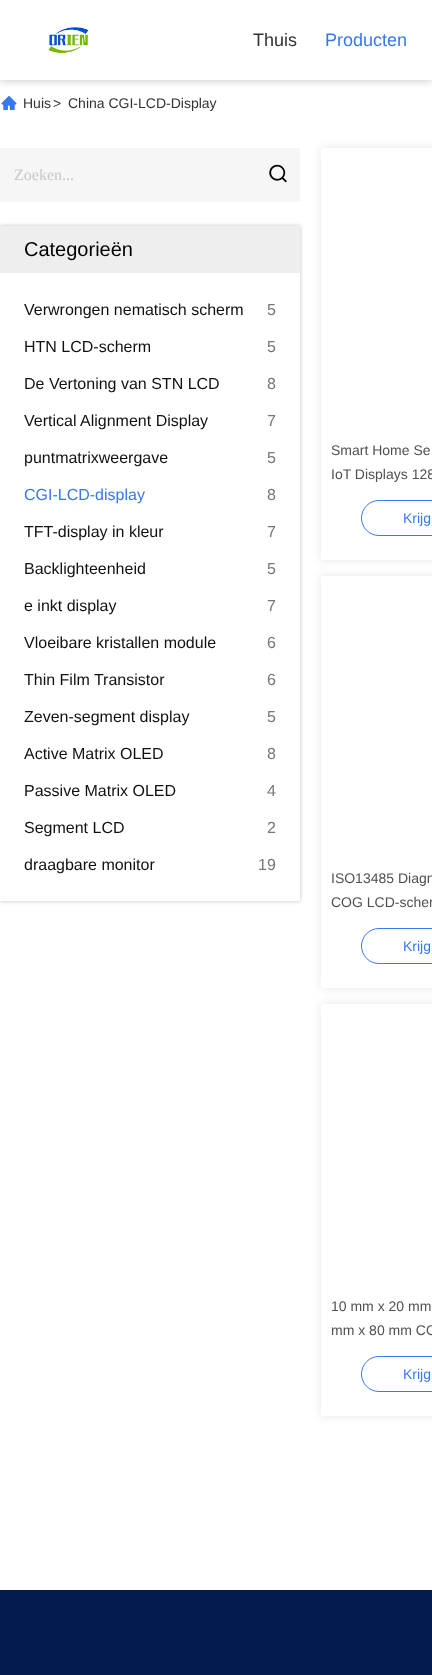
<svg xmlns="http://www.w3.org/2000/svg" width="432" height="1675">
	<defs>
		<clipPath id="clip1"><rect x="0" y="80" width="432" height="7" /></clipPath>
		<clipPath id="clip2"><path d="M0 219H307V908H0ZM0 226H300V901H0Z" clip-rule="evenodd" /></clipPath>
		<clipPath id="clip3"><path d="M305 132H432V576H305ZM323 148H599C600 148 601 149 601 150V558C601 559 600 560 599 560H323C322 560 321 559 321 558V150C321 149 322 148 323 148Z" clip-rule="evenodd" /></clipPath>
		<clipPath id="clip4"><path d="M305 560H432V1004H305ZM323 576H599C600 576 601 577 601 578V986C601 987 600 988 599 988H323C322 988 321 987 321 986V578C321 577 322 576 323 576Z" clip-rule="evenodd" /></clipPath>
		<clipPath id="clip5"><path d="M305 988H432V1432H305ZM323 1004H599C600 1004 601 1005 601 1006V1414C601 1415 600 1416 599 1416H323C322 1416 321 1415 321 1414V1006C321 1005 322 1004 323 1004Z" clip-rule="evenodd" /></clipPath>
	</defs>
	<rect width="100%" height="100%" fill="#FFFFFF" />
	<image x="1" y="95" width="16" height="15" href="assets/img2.png" />
	<g clip-path="url(#clip1)">
		<rect x="0" y="0" width="432" height="80" fill="#000000" fill-opacity="0.25" filter="blur(5px)" />
	</g>
	<image x="48" y="27" width="41" height="27" href="assets/img1.png" />
	<text x="253" y="46" font-family="Liberation Sans" font-size="18" fill="#323232">Thuis</text>
	<text x="325" y="46" font-family="Liberation Sans" font-size="18" fill="#3679EF">Producten</text>
	<g font-family="Liberation Sans" font-size="14" fill="#323232">
		<text x="23" y="108">Huis</text>
		<text x="53" y="108">&gt;</text>
		<text x="68" y="108">China CGI-LCD-Display</text>
	</g>
	<rect x="0" y="148" width="300" height="54" fill="#F6F6F6" />
	<text x="14" y="180" font-family="Liberation Serif" font-size="16" fill="#C7C7C7">Zoeken...</text>
	<image x="269" y="164" width="18" height="19" href="assets/img3.png" />
	<g clip-path="url(#clip2)">
		<rect x="0" y="226" width="300" height="675" fill="#000000" fill-opacity="0.25" filter="blur(2px)" />
	</g>
	<rect x="0" y="226" width="300" height="47" fill="#EEEEEE" />
	<text x="24" y="256" font-family="Liberation Sans" font-size="20" fill="#000000">Categorieën</text>
	<text x="24" y="315" font-family="Liberation Sans" font-size="16" fill="#111111">Verwrongen nematisch scherm</text>
	<text x="267" y="315" font-family="Liberation Sans" font-size="16" fill="#777777">5</text>
	<text x="24" y="352" font-family="Liberation Sans" font-size="16" fill="#111111">HTN LCD-scherm</text>
	<text x="267" y="352" font-family="Liberation Sans" font-size="16" fill="#777777">5</text>
	<text x="24" y="389" font-family="Liberation Sans" font-size="16" fill="#111111">De Vertoning van STN LCD</text>
	<text x="267" y="389" font-family="Liberation Sans" font-size="16" fill="#777777">8</text>
	<text x="24" y="426" font-family="Liberation Sans" font-size="16" fill="#111111">Vertical Alignment Display</text>
	<text x="267" y="426" font-family="Liberation Sans" font-size="16" fill="#777777">7</text>
	<text x="24" y="463" font-family="Liberation Sans" font-size="16" fill="#111111">puntmatrixweergave</text>
	<text x="267" y="463" font-family="Liberation Sans" font-size="16" fill="#777777">5</text>
	<text x="24" y="500" font-family="Liberation Sans" font-size="16" fill="#3679EF">CGI-LCD-display</text>
	<text x="267" y="500" font-family="Liberation Sans" font-size="16" fill="#777777">8</text>
	<text x="24" y="537" font-family="Liberation Sans" font-size="16" fill="#111111">TFT-display in kleur</text>
	<text x="267" y="537" font-family="Liberation Sans" font-size="16" fill="#777777">7</text>
	<text x="24" y="574" font-family="Liberation Sans" font-size="16" fill="#111111">Backlighteenheid</text>
	<text x="267" y="574" font-family="Liberation Sans" font-size="16" fill="#777777">5</text>
	<text x="24" y="611" font-family="Liberation Sans" font-size="16" fill="#111111">e inkt display</text>
	<text x="267" y="611" font-family="Liberation Sans" font-size="16" fill="#777777">7</text>
	<text x="24" y="648" font-family="Liberation Sans" font-size="16" fill="#111111">Vloeibare kristallen module</text>
	<text x="267" y="648" font-family="Liberation Sans" font-size="16" fill="#777777">6</text>
	<text x="24" y="685" font-family="Liberation Sans" font-size="16" fill="#111111">Thin Film Transistor</text>
	<text x="267" y="685" font-family="Liberation Sans" font-size="16" fill="#777777">6</text>
	<text x="24" y="722" font-family="Liberation Sans" font-size="16" fill="#111111">Zeven-segment display</text>
	<text x="267" y="722" font-family="Liberation Sans" font-size="16" fill="#777777">5</text>
	<text x="24" y="759" font-family="Liberation Sans" font-size="16" fill="#111111">Active Matrix OLED</text>
	<text x="267" y="759" font-family="Liberation Sans" font-size="16" fill="#777777">8</text>
	<text x="24" y="796" font-family="Liberation Sans" font-size="16" fill="#111111">Passive Matrix OLED</text>
	<text x="267" y="796" font-family="Liberation Sans" font-size="16" fill="#777777">4</text>
	<text x="24" y="833" font-family="Liberation Sans" font-size="16" fill="#111111">Segment LCD</text>
	<text x="267" y="833" font-family="Liberation Sans" font-size="16" fill="#777777">2</text>
	<text x="24" y="870" font-family="Liberation Sans" font-size="16" fill="#111111">draagbare monitor</text>
	<text x="258" y="870" font-family="Liberation Sans" font-size="16" fill="#777777">19</text>
	<g clip-path="url(#clip3)">
		<rect x="321" y="148" width="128" height="412" rx="2" fill="#000000" fill-opacity="0.1" filter="blur(5px)" />
	</g>
	<g font-family="Liberation Sans" font-size="14" fill="#505050">
		<text x="331" y="455">Smart Home Se</text>
		<text x="331" y="479">IoT Displays 128</text>
	</g>
	<rect x="361.5" y="500.5" width="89" height="35" rx="17.5" fill="none" stroke="#3679EF" />
	<text x="403" y="523" font-family="Liberation Sans" font-size="14" fill="#3679EF">Krijg</text>
	<g clip-path="url(#clip4)">
		<rect x="321" y="576" width="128" height="412" rx="2" fill="#000000" fill-opacity="0.1" filter="blur(5px)" />
	</g>
	<g font-family="Liberation Sans" font-size="14" fill="#505050">
		<text x="331" y="883">ISO13485 Diagn</text>
		<text x="331" y="907">COG LCD-scher</text>
	</g>
	<rect x="361.5" y="928.5" width="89" height="35" rx="17.5" fill="none" stroke="#3679EF" />
	<text x="403" y="951" font-family="Liberation Sans" font-size="14" fill="#3679EF">Krijg</text>
	<g clip-path="url(#clip5)">
		<rect x="321" y="1004" width="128" height="412" rx="2" fill="#000000" fill-opacity="0.1" filter="blur(5px)" />
	</g>
	<g font-family="Liberation Sans" font-size="14" fill="#505050">
		<text x="331" y="1311">10 mm x 20 mm</text>
		<text x="331" y="1335">mm x 80 mm CO</text>
	</g>
	<rect x="361.5" y="1356.5" width="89" height="35" rx="17.5" fill="none" stroke="#3679EF" />
	<text x="403" y="1379" font-family="Liberation Sans" font-size="14" fill="#3679EF">Krijg</text>
	<rect x="0" y="1590" width="432" height="85" fill="#031B4E" />
</svg>
